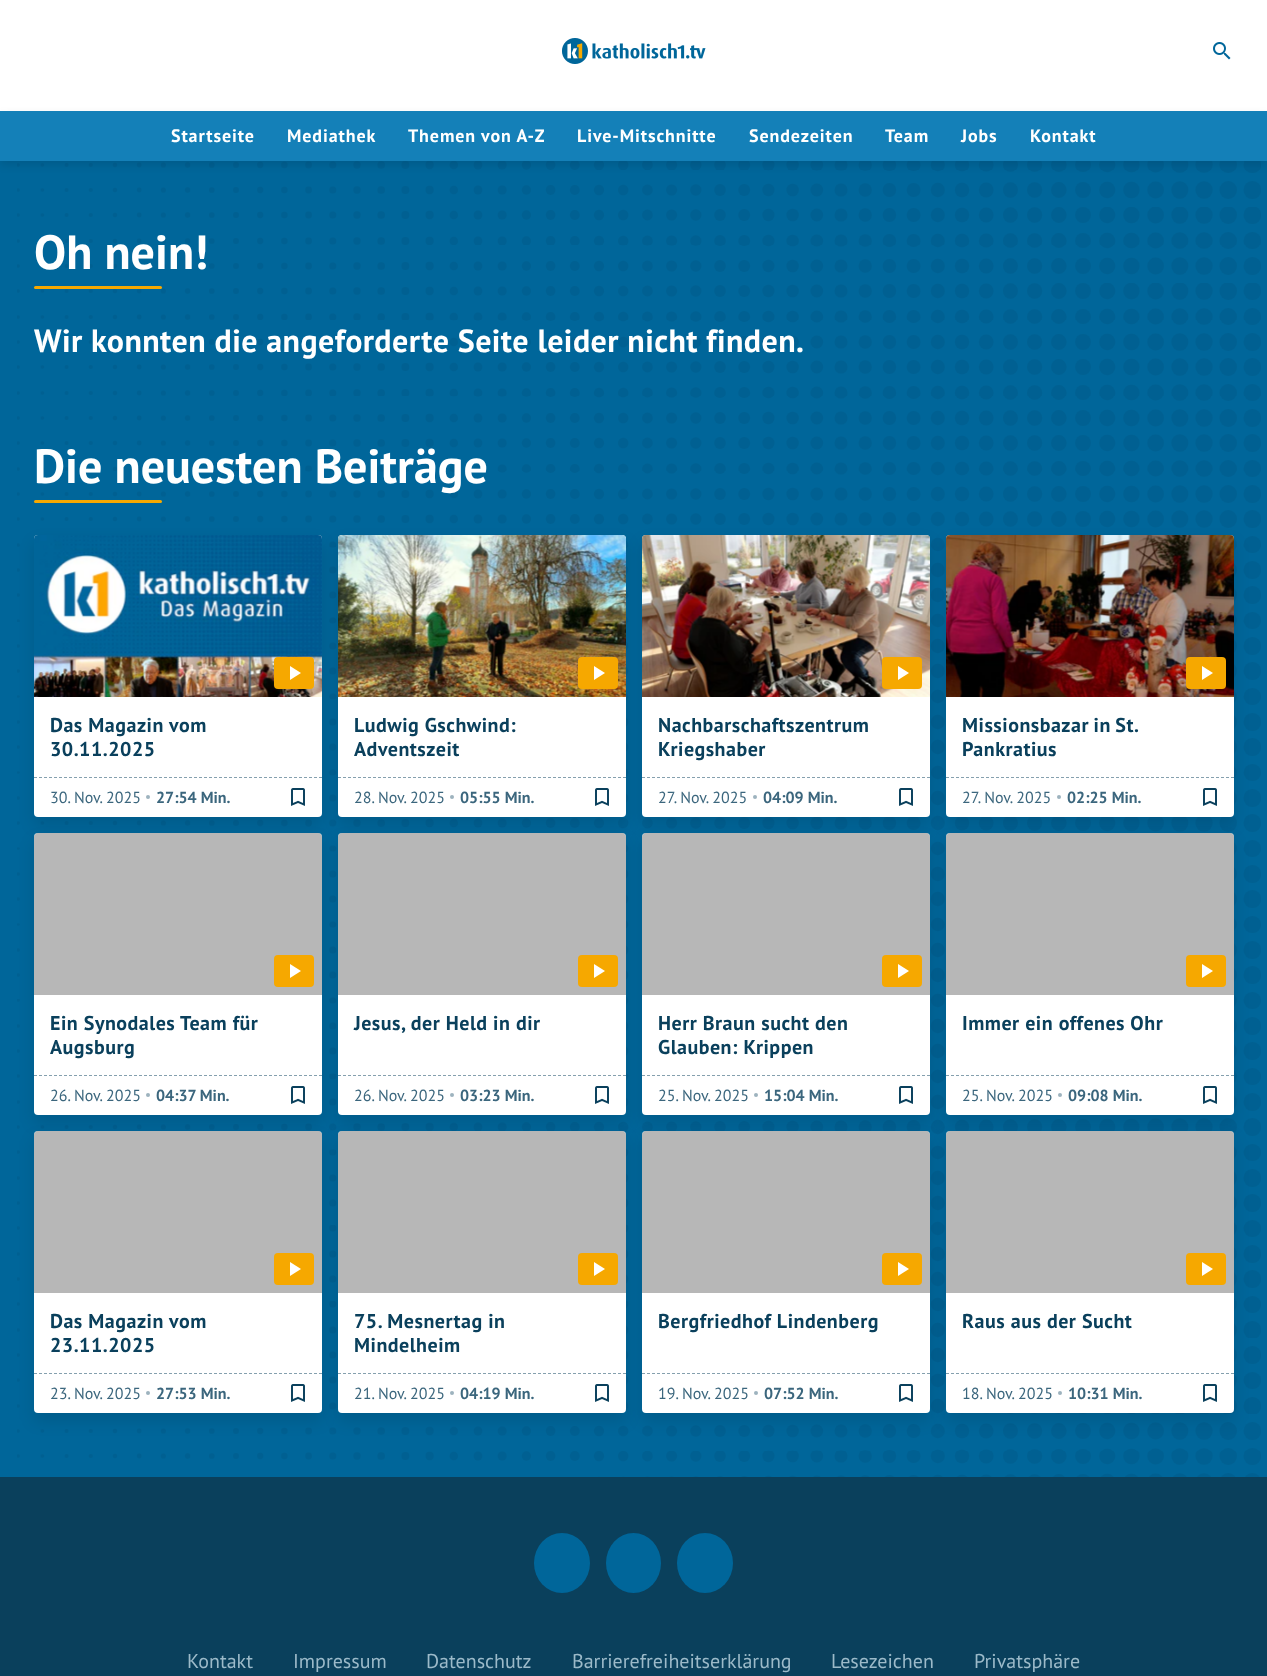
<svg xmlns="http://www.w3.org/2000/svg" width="1267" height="1676">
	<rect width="100%" height="100%" fill="#FFFFFF" />
	<image x="562" y="38" width="144" height="26" href="assets/img1.png" />
	<image x="1213" y="42" width="18" height="18" href="assets/img2.png" />
	<rect x="0" y="161" width="1267" height="1316" fill="#00669A" />
	<image x="17" y="161" width="1244" height="1316" href="assets/img3.png" />
	<rect x="0" y="115" width="1267" height="50" fill="#000000" fill-opacity="0.1" filter="blur(4px)" />
	<rect x="0" y="111" width="1267" height="50" fill="#1480B8" />
	<g font-family="PT Sans" font-size="18" font-weight="700" letter-spacing="0.9" fill="#FFFFFF">
		<text x="171" y="142">Startseite</text>
		<text x="287" y="142">Mediathek</text>
		<text x="408" y="142">Themen von A-Z</text>
		<text x="577" y="142">Live-Mitschnitte</text>
		<text x="749" y="142">Sendezeiten</text>
		<text x="885" y="142">Team</text>
		<text x="961" y="142">Jobs</text>
		<text x="1030" y="142">Kontakt</text>
	</g>
	<text x="34" y="269" font-family="PT Sans" font-size="48" font-weight="700" fill="#FFFFFF">Oh nein!</text>
	<rect x="34" y="286" width="128" height="3" rx="1.5" fill="#F6A800" />
	<text x="34" y="352" font-family="PT Sans" font-size="32" font-weight="700" letter-spacing="0.4" fill="#FFFFFF">Wir konnten die angeforderte Seite leider nicht finden.</text>
	<text x="34" y="483" font-family="PT Sans" font-size="48" font-weight="700" fill="#FFFFFF">Die neuesten Beiträge</text>
	<rect x="34" y="500" width="128" height="3" rx="1.5" fill="#F6A800" />
	<rect x="34" y="543" width="288" height="282" rx="4" fill="#000000" fill-opacity="0.1" filter="blur(8px)" />
	<rect x="34" y="535" width="288" height="282" rx="4" fill="#FFFFFF" />
	<image x="34" y="535" width="288" height="162" href="assets/img4.png" />
	<rect x="274" y="657" width="40" height="32" rx="4" fill="#F6A800" />
	<path d="M290 666L301 673L290 680Z" fill="#FFFFFF" />
	<g font-family="PT Sans" font-size="20" font-weight="700" letter-spacing="0.5" fill="#0A405C">
		<text x="50" y="732">Das Magazin vom</text>
		<text x="50" y="756">30.11.2025</text>
	</g>
	<path d="M34 777.5H322" fill="none" stroke="#85A0AE" stroke-dasharray="3 2" />
	<text x="50" y="803" font-family="PT Sans" font-size="16" fill="#3B667D">30. Nov. 2025</text>
	<circle cx="148" cy="797" r="2" fill="#9DB3BE" />
	<text x="156" y="803" font-family="PT Sans" font-size="16" font-weight="700" fill="#3B667D">27:54 Min.</text>
	<image x="291" y="788" width="14" height="18" href="assets/img5.png" />
	<rect x="338" y="543" width="288" height="282" rx="4" fill="#000000" fill-opacity="0.1" filter="blur(8px)" />
	<rect x="338" y="535" width="288" height="282" rx="4" fill="#FFFFFF" />
	<image x="338" y="535" width="288" height="162" href="assets/img6.png" />
	<rect x="578" y="657" width="40" height="32" rx="4" fill="#F6A800" />
	<path d="M594 666L605 673L594 680Z" fill="#FFFFFF" />
	<g font-family="PT Sans" font-size="20" font-weight="700" letter-spacing="0.5" fill="#0A405C">
		<text x="354" y="732">Ludwig Gschwind:</text>
		<text x="354" y="756">Adventszeit</text>
	</g>
	<path d="M338 777.5H626" fill="none" stroke="#85A0AE" stroke-dasharray="3 2" />
	<text x="354" y="803" font-family="PT Sans" font-size="16" fill="#3B667D">28. Nov. 2025</text>
	<circle cx="452" cy="797" r="2" fill="#9DB3BE" />
	<text x="460" y="803" font-family="PT Sans" font-size="16" font-weight="700" fill="#3B667D">05:55 Min.</text>
	<image x="595" y="788" width="14" height="18" href="assets/img5.png" />
	<rect x="642" y="543" width="288" height="282" rx="4" fill="#000000" fill-opacity="0.1" filter="blur(8px)" />
	<rect x="642" y="535" width="288" height="282" rx="4" fill="#FFFFFF" />
	<image x="642" y="535" width="288" height="162" href="assets/img7.png" />
	<rect x="882" y="657" width="40" height="32" rx="4" fill="#F6A800" />
	<path d="M898 666L909 673L898 680Z" fill="#FFFFFF" />
	<g font-family="PT Sans" font-size="20" font-weight="700" letter-spacing="0.5" fill="#0A405C">
		<text x="658" y="732">Nachbarschaftszentrum</text>
		<text x="658" y="756">Kriegshaber</text>
	</g>
	<path d="M642 777.5H930" fill="none" stroke="#85A0AE" stroke-dasharray="3 2" />
	<text x="658" y="803" font-family="PT Sans" font-size="16" fill="#3B667D">27. Nov. 2025</text>
	<circle cx="755" cy="797" r="2" fill="#9DB3BE" />
	<text x="763" y="803" font-family="PT Sans" font-size="16" font-weight="700" fill="#3B667D">04:09 Min.</text>
	<image x="899" y="788" width="14" height="18" href="assets/img5.png" />
	<rect x="946" y="543" width="288" height="282" rx="4" fill="#000000" fill-opacity="0.1" filter="blur(8px)" />
	<rect x="946" y="535" width="288" height="282" rx="4" fill="#FFFFFF" />
	<image x="946" y="535" width="288" height="162" href="assets/img8.png" />
	<rect x="1186" y="657" width="40" height="32" rx="4" fill="#F6A800" />
	<path d="M1202 666L1213 673L1202 680Z" fill="#FFFFFF" />
	<g font-family="PT Sans" font-size="20" font-weight="700" letter-spacing="0.5" fill="#0A405C">
		<text x="962" y="732" word-spacing="-1">Missionsbazar in St.</text>
		<text x="962" y="756">Pankratius</text>
	</g>
	<path d="M946 777.5H1234" fill="none" stroke="#85A0AE" stroke-dasharray="3 2" />
	<text x="962" y="803" font-family="PT Sans" font-size="16" fill="#3B667D">27. Nov. 2025</text>
	<circle cx="1059" cy="797" r="2" fill="#9DB3BE" />
	<text x="1067" y="803" font-family="PT Sans" font-size="16" font-weight="700" fill="#3B667D">02:25 Min.</text>
	<image x="1203" y="788" width="14" height="18" href="assets/img5.png" />
	<rect x="34" y="841" width="288" height="282" rx="4" fill="#000000" fill-opacity="0.1" filter="blur(8px)" />
	<rect x="34" y="833" width="288" height="282" rx="4" fill="#FFFFFF" />
	<path d="M38 833H318C320 833 322 835 322 837V995H34V837C34 835 36 833 38 833Z" fill="#000000" fill-opacity="0.2" />
	<path d="M38 833H318C320 833 322 835 322 837V995H34V837C34 835 36 833 38 833Z" fill="#000000" fill-opacity="0.1" />
	<rect x="274" y="955" width="40" height="32" rx="4" fill="#F6A800" />
	<path d="M290 964L301 971L290 978Z" fill="#FFFFFF" />
	<g font-family="PT Sans" font-size="20" font-weight="700" letter-spacing="0.5" fill="#0A405C">
		<text x="50" y="1030">Ein Synodales Team für</text>
		<text x="50" y="1054">Augsburg</text>
	</g>
	<path d="M34 1075.5H322" fill="none" stroke="#85A0AE" stroke-dasharray="3 2" />
	<text x="50" y="1101" font-family="PT Sans" font-size="16" fill="#3B667D">26. Nov. 2025</text>
	<circle cx="148" cy="1095" r="2" fill="#9DB3BE" />
	<text x="156" y="1101" font-family="PT Sans" font-size="16" font-weight="700" fill="#3B667D">04:37 Min.</text>
	<image x="291" y="1086" width="14" height="18" href="assets/img5.png" />
	<rect x="338" y="841" width="288" height="282" rx="4" fill="#000000" fill-opacity="0.1" filter="blur(8px)" />
	<rect x="338" y="833" width="288" height="282" rx="4" fill="#FFFFFF" />
	<path d="M342 833H622C624 833 626 835 626 837V995H338V837C338 835 340 833 342 833Z" fill="#000000" fill-opacity="0.2" />
	<path d="M342 833H622C624 833 626 835 626 837V995H338V837C338 835 340 833 342 833Z" fill="#000000" fill-opacity="0.1" />
	<rect x="578" y="955" width="40" height="32" rx="4" fill="#F6A800" />
	<path d="M594 964L605 971L594 978Z" fill="#FFFFFF" />
	<text x="354" y="1030" font-family="PT Sans" font-size="20" font-weight="700" letter-spacing="0.5" fill="#0A405C">Jesus, der Held in dir</text>
	<path d="M338 1075.5H626" fill="none" stroke="#85A0AE" stroke-dasharray="3 2" />
	<text x="354" y="1101" font-family="PT Sans" font-size="16" fill="#3B667D">26. Nov. 2025</text>
	<circle cx="452" cy="1095" r="2" fill="#9DB3BE" />
	<text x="460" y="1101" font-family="PT Sans" font-size="16" font-weight="700" fill="#3B667D">03:23 Min.</text>
	<image x="595" y="1086" width="14" height="18" href="assets/img5.png" />
	<rect x="642" y="841" width="288" height="282" rx="4" fill="#000000" fill-opacity="0.1" filter="blur(8px)" />
	<rect x="642" y="833" width="288" height="282" rx="4" fill="#FFFFFF" />
	<path d="M646 833H926C928 833 930 835 930 837V995H642V837C642 835 644 833 646 833Z" fill="#000000" fill-opacity="0.2" />
	<path d="M646 833H926C928 833 930 835 930 837V995H642V837C642 835 644 833 646 833Z" fill="#000000" fill-opacity="0.1" />
	<rect x="882" y="955" width="40" height="32" rx="4" fill="#F6A800" />
	<path d="M898 964L909 971L898 978Z" fill="#FFFFFF" />
	<g font-family="PT Sans" font-size="20" font-weight="700" letter-spacing="0.5" fill="#0A405C">
		<text x="658" y="1030">Herr Braun sucht den</text>
		<text x="658" y="1054">Glauben: Krippen</text>
	</g>
	<path d="M642 1075.5H930" fill="none" stroke="#85A0AE" stroke-dasharray="3 2" />
	<text x="658" y="1101" font-family="PT Sans" font-size="16" fill="#3B667D">25. Nov. 2025</text>
	<circle cx="756" cy="1095" r="2" fill="#9DB3BE" />
	<text x="764" y="1101" font-family="PT Sans" font-size="16" font-weight="700" fill="#3B667D">15:04 Min.</text>
	<image x="899" y="1086" width="14" height="18" href="assets/img5.png" />
	<rect x="946" y="841" width="288" height="282" rx="4" fill="#000000" fill-opacity="0.1" filter="blur(8px)" />
	<rect x="946" y="833" width="288" height="282" rx="4" fill="#FFFFFF" />
	<path d="M950 833H1230C1232 833 1234 835 1234 837V995H946V837C946 835 948 833 950 833Z" fill="#000000" fill-opacity="0.2" />
	<path d="M950 833H1230C1232 833 1234 835 1234 837V995H946V837C946 835 948 833 950 833Z" fill="#000000" fill-opacity="0.1" />
	<rect x="1186" y="955" width="40" height="32" rx="4" fill="#F6A800" />
	<path d="M1202 964L1213 971L1202 978Z" fill="#FFFFFF" />
	<text x="962" y="1030" font-family="PT Sans" font-size="20" font-weight="700" letter-spacing="0.5" fill="#0A405C">Immer ein offenes Ohr</text>
	<path d="M946 1075.5H1234" fill="none" stroke="#85A0AE" stroke-dasharray="3 2" />
	<text x="962" y="1101" font-family="PT Sans" font-size="16" fill="#3B667D">25. Nov. 2025</text>
	<circle cx="1060" cy="1095" r="2" fill="#9DB3BE" />
	<text x="1068" y="1101" font-family="PT Sans" font-size="16" font-weight="700" fill="#3B667D">09:08 Min.</text>
	<image x="1203" y="1086" width="14" height="18" href="assets/img5.png" />
	<rect x="34" y="1139" width="288" height="282" rx="4" fill="#000000" fill-opacity="0.1" filter="blur(8px)" />
	<rect x="34" y="1131" width="288" height="282" rx="4" fill="#FFFFFF" />
	<path d="M38 1131H318C320 1131 322 1133 322 1135V1293H34V1135C34 1133 36 1131 38 1131Z" fill="#000000" fill-opacity="0.2" />
	<path d="M38 1131H318C320 1131 322 1133 322 1135V1293H34V1135C34 1133 36 1131 38 1131Z" fill="#000000" fill-opacity="0.1" />
	<rect x="274" y="1253" width="40" height="32" rx="4" fill="#F6A800" />
	<path d="M290 1262L301 1269L290 1276Z" fill="#FFFFFF" />
	<g font-family="PT Sans" font-size="20" font-weight="700" letter-spacing="0.5" fill="#0A405C">
		<text x="50" y="1328">Das Magazin vom</text>
		<text x="50" y="1352">23.11.2025</text>
	</g>
	<path d="M34 1373.5H322" fill="none" stroke="#85A0AE" stroke-dasharray="3 2" />
	<text x="50" y="1399" font-family="PT Sans" font-size="16" fill="#3B667D">23. Nov. 2025</text>
	<circle cx="148" cy="1393" r="2" fill="#9DB3BE" />
	<text x="156" y="1399" font-family="PT Sans" font-size="16" font-weight="700" fill="#3B667D">27:53 Min.</text>
	<image x="291" y="1384" width="14" height="18" href="assets/img5.png" />
	<rect x="338" y="1139" width="288" height="282" rx="4" fill="#000000" fill-opacity="0.1" filter="blur(8px)" />
	<rect x="338" y="1131" width="288" height="282" rx="4" fill="#FFFFFF" />
	<path d="M342 1131H622C624 1131 626 1133 626 1135V1293H338V1135C338 1133 340 1131 342 1131Z" fill="#000000" fill-opacity="0.2" />
	<path d="M342 1131H622C624 1131 626 1133 626 1135V1293H338V1135C338 1133 340 1131 342 1131Z" fill="#000000" fill-opacity="0.1" />
	<rect x="578" y="1253" width="40" height="32" rx="4" fill="#F6A800" />
	<path d="M594 1262L605 1269L594 1276Z" fill="#FFFFFF" />
	<g font-family="PT Sans" font-size="20" font-weight="700" letter-spacing="0.5" fill="#0A405C">
		<text x="354" y="1328">75. Mesnertag in</text>
		<text x="354" y="1352">Mindelheim</text>
	</g>
	<path d="M338 1373.5H626" fill="none" stroke="#85A0AE" stroke-dasharray="3 2" />
	<text x="354" y="1399" font-family="PT Sans" font-size="16" fill="#3B667D">21. Nov. 2025</text>
	<circle cx="452" cy="1393" r="2" fill="#9DB3BE" />
	<text x="460" y="1399" font-family="PT Sans" font-size="16" font-weight="700" fill="#3B667D">04:19 Min.</text>
	<image x="595" y="1384" width="14" height="18" href="assets/img5.png" />
	<rect x="642" y="1139" width="288" height="282" rx="4" fill="#000000" fill-opacity="0.1" filter="blur(8px)" />
	<rect x="642" y="1131" width="288" height="282" rx="4" fill="#FFFFFF" />
	<path d="M646 1131H926C928 1131 930 1133 930 1135V1293H642V1135C642 1133 644 1131 646 1131Z" fill="#000000" fill-opacity="0.2" />
	<path d="M646 1131H926C928 1131 930 1133 930 1135V1293H642V1135C642 1133 644 1131 646 1131Z" fill="#000000" fill-opacity="0.1" />
	<rect x="882" y="1253" width="40" height="32" rx="4" fill="#F6A800" />
	<path d="M898 1262L909 1269L898 1276Z" fill="#FFFFFF" />
	<text x="658" y="1328" font-family="PT Sans" font-size="20" font-weight="700" letter-spacing="0.5" fill="#0A405C">Bergfriedhof Lindenberg</text>
	<path d="M642 1373.5H930" fill="none" stroke="#85A0AE" stroke-dasharray="3 2" />
	<text x="658" y="1399" font-family="PT Sans" font-size="16" fill="#3B667D">19. Nov. 2025</text>
	<circle cx="756" cy="1393" r="2" fill="#9DB3BE" />
	<text x="764" y="1399" font-family="PT Sans" font-size="16" font-weight="700" fill="#3B667D">07:52 Min.</text>
	<image x="899" y="1384" width="14" height="18" href="assets/img5.png" />
	<rect x="946" y="1139" width="288" height="282" rx="4" fill="#000000" fill-opacity="0.1" filter="blur(8px)" />
	<rect x="946" y="1131" width="288" height="282" rx="4" fill="#FFFFFF" />
	<path d="M950 1131H1230C1232 1131 1234 1133 1234 1135V1293H946V1135C946 1133 948 1131 950 1131Z" fill="#000000" fill-opacity="0.2" />
	<path d="M950 1131H1230C1232 1131 1234 1133 1234 1135V1293H946V1135C946 1133 948 1131 950 1131Z" fill="#000000" fill-opacity="0.1" />
	<rect x="1186" y="1253" width="40" height="32" rx="4" fill="#F6A800" />
	<path d="M1202 1262L1213 1269L1202 1276Z" fill="#FFFFFF" />
	<text x="962" y="1328" font-family="PT Sans" font-size="20" font-weight="700" letter-spacing="0.5" fill="#0A405C">Raus aus der Sucht</text>
	<path d="M946 1373.5H1234" fill="none" stroke="#85A0AE" stroke-dasharray="3 2" />
	<text x="962" y="1399" font-family="PT Sans" font-size="16" fill="#3B667D">18. Nov. 2025</text>
	<circle cx="1060" cy="1393" r="2" fill="#9DB3BE" />
	<text x="1068" y="1399" font-family="PT Sans" font-size="16" font-weight="700" fill="#3B667D">10:31 Min.</text>
	<image x="1203" y="1384" width="14" height="18" href="assets/img5.png" />
	<rect x="0" y="1477" width="1267" height="199" fill="#0A405C" />
	<ellipse cx="562" cy="1563" rx="28" ry="30" fill="#00669A" />
	<ellipse cx="633.5" cy="1563" rx="27.5" ry="30" fill="#00669A" />
	<ellipse cx="705" cy="1563" rx="28" ry="30" fill="#00669A" />
	<g font-family="PT Sans" font-size="20" fill="#9CBAC9">
		<text x="187" y="1668">Kontakt</text>
		<text x="293" y="1668">Impressum</text>
		<text x="426" y="1668">Datenschutz</text>
		<text x="572" y="1668">Barrierefreiheitserklärung</text>
		<text x="831" y="1668">Lesezeichen</text>
		<text x="974" y="1668">Privatsphäre</text>
	</g>
</svg>
